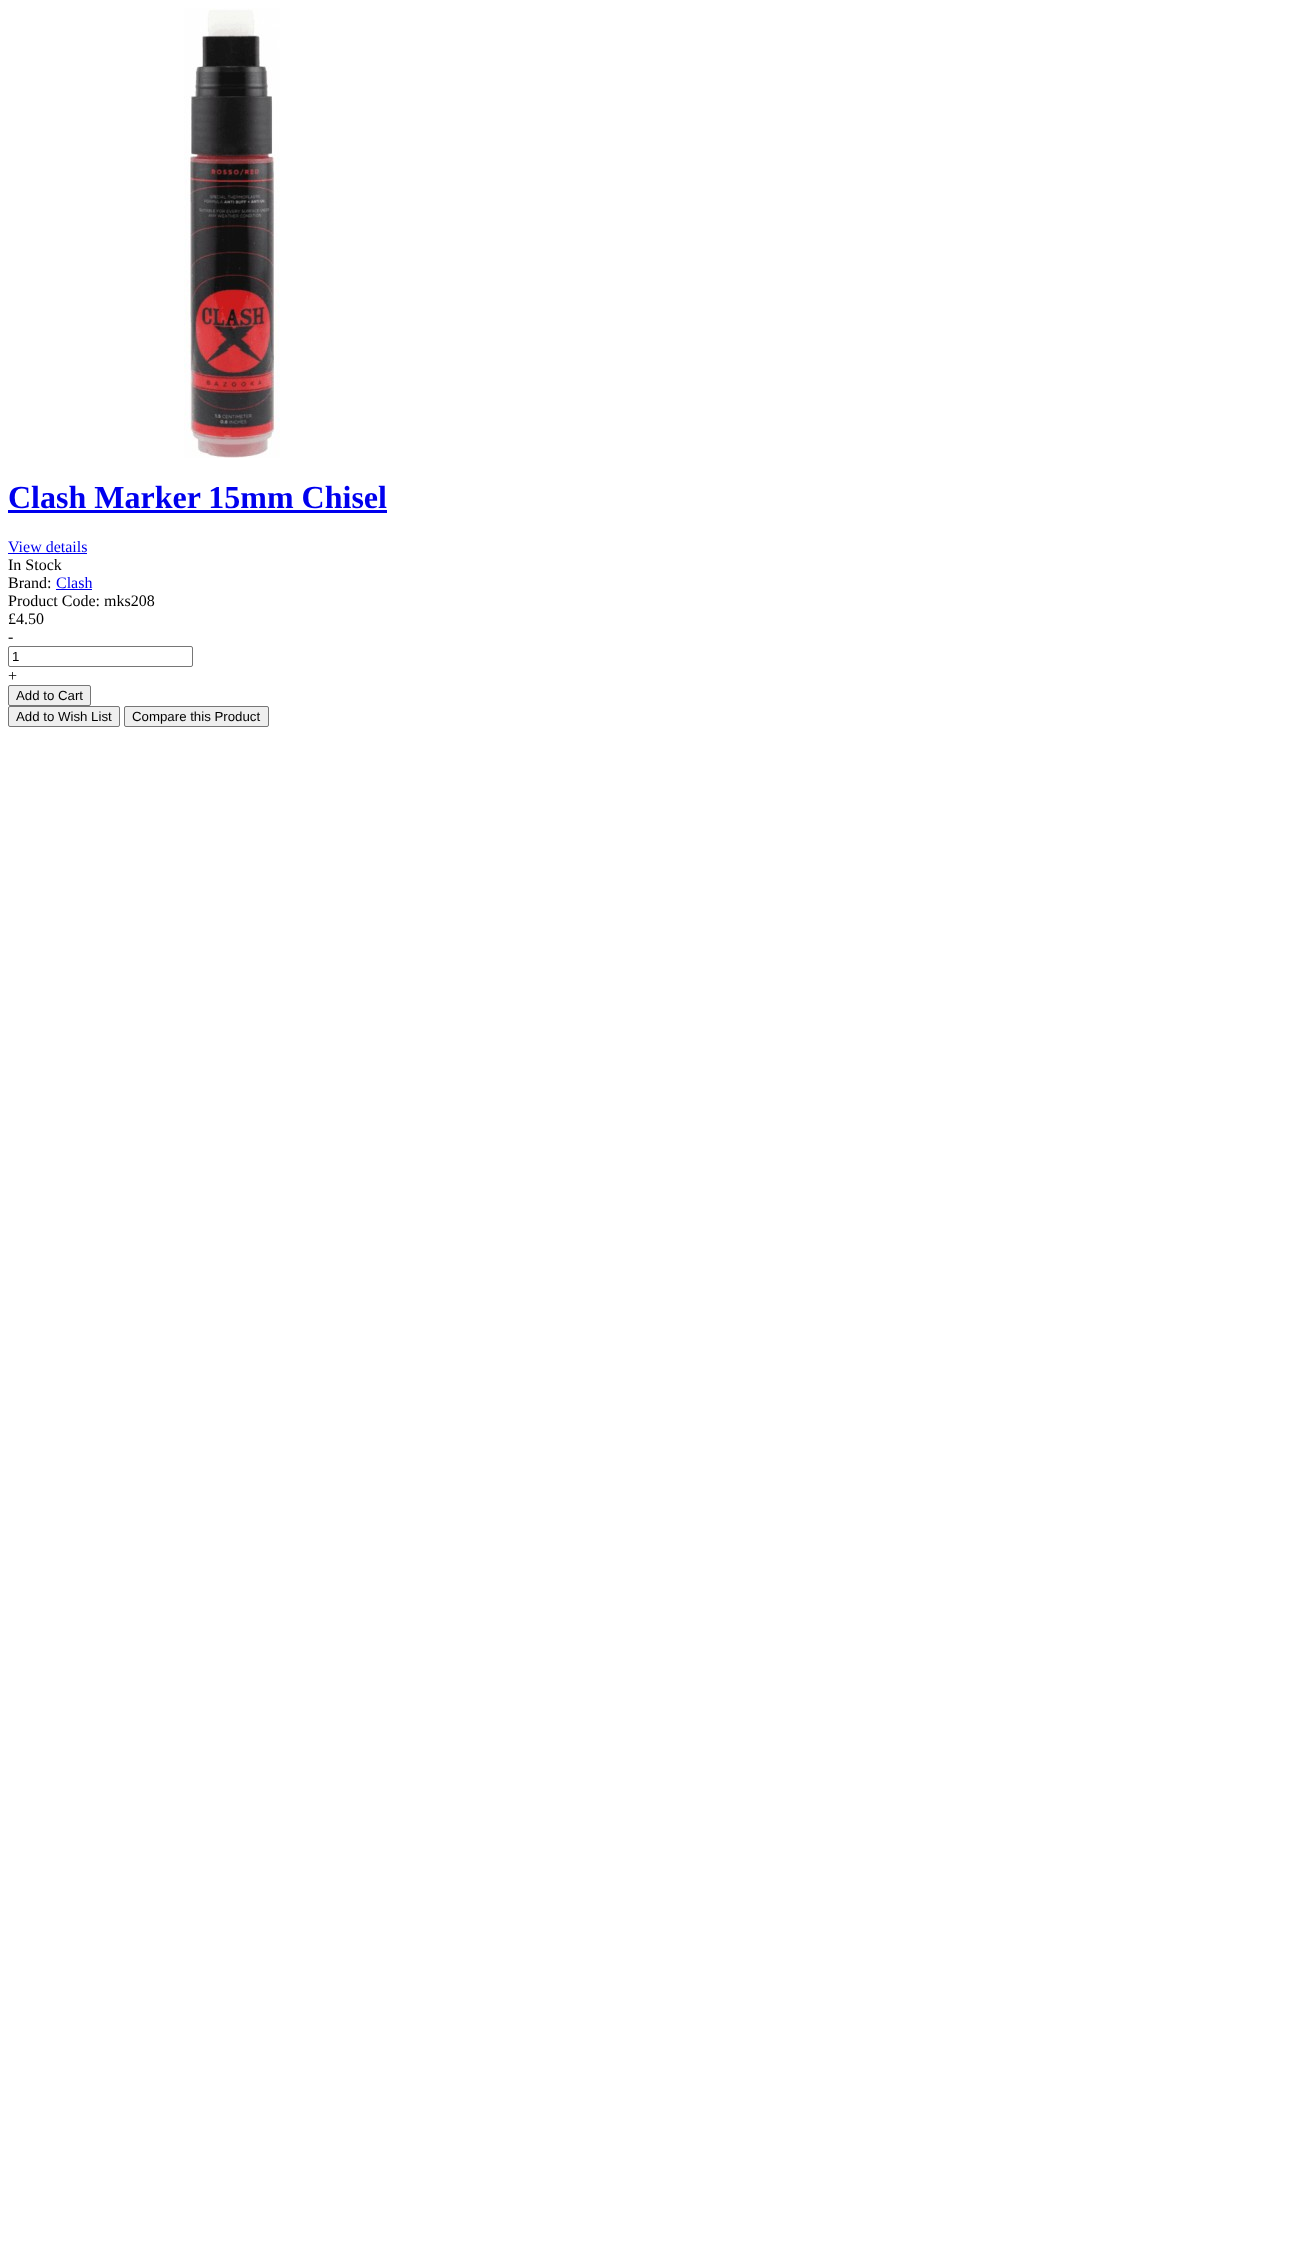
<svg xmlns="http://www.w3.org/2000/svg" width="1311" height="2265">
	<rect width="100%" height="100%" fill="#FFFFFF" />
	<image x="184" y="8" width="96" height="450" href="assets/img1.png" />
	<text x="8" y="508" font-family="Liberation Serif" font-size="32" font-weight="700" fill="#0000EE">Clash Marker 15mm Chisel</text>
	<rect x="8" y="510" width="379" height="3" fill="#0000EE" />
	<text x="8" y="552" font-family="Liberation Serif" font-size="16" fill="#0000EE">View details</text>
	<rect x="8" y="553" width="79" height="1" fill="#0000EE" />
	<g font-family="Liberation Serif" font-size="16" fill="#000000">
		<text x="8" y="570">In Stock</text>
		<text x="8" y="588">Brand:</text>
	</g>
	<text x="56" y="588" font-family="Liberation Serif" font-size="16" fill="#0000EE">Clash</text>
	<rect x="56" y="589" width="36" height="1" fill="#0000EE" />
	<g font-family="Liberation Serif" font-size="16" fill="#000000">
		<text x="8" y="606">Product Code: mks208</text>
		<text x="8" y="624">£4.50</text>
		<text x="8" y="642">-</text>
	</g>
	<rect x="8.5" y="646.5" width="184" height="20" rx="1.5" fill="none" stroke="#767676" />
	<text x="12" y="661" font-family="Liberation Sans" font-size="13.25" fill="#000000">1</text>
	<text x="8" y="681" font-family="Liberation Serif" font-size="16" fill="#000000">+</text>
	<rect x="8.5" y="685.5" width="82" height="20" rx="1.5" fill="#EFEFEF" stroke="#767676" />
	<text x="16" y="700" font-family="Liberation Sans" font-size="13.25" fill="#000000">Add to Cart</text>
	<rect x="8.5" y="706.5" width="111" height="20" rx="1.5" fill="#EFEFEF" stroke="#767676" />
	<text x="16" y="721" font-family="Liberation Sans" font-size="13.25" fill="#000000">Add to Wish List</text>
	<rect x="124.5" y="706.5" width="144" height="20" rx="1.5" fill="#EFEFEF" stroke="#767676" />
	<text x="132" y="721" font-family="Liberation Sans" font-size="13.25" fill="#000000">Compare this Product</text>
</svg>
